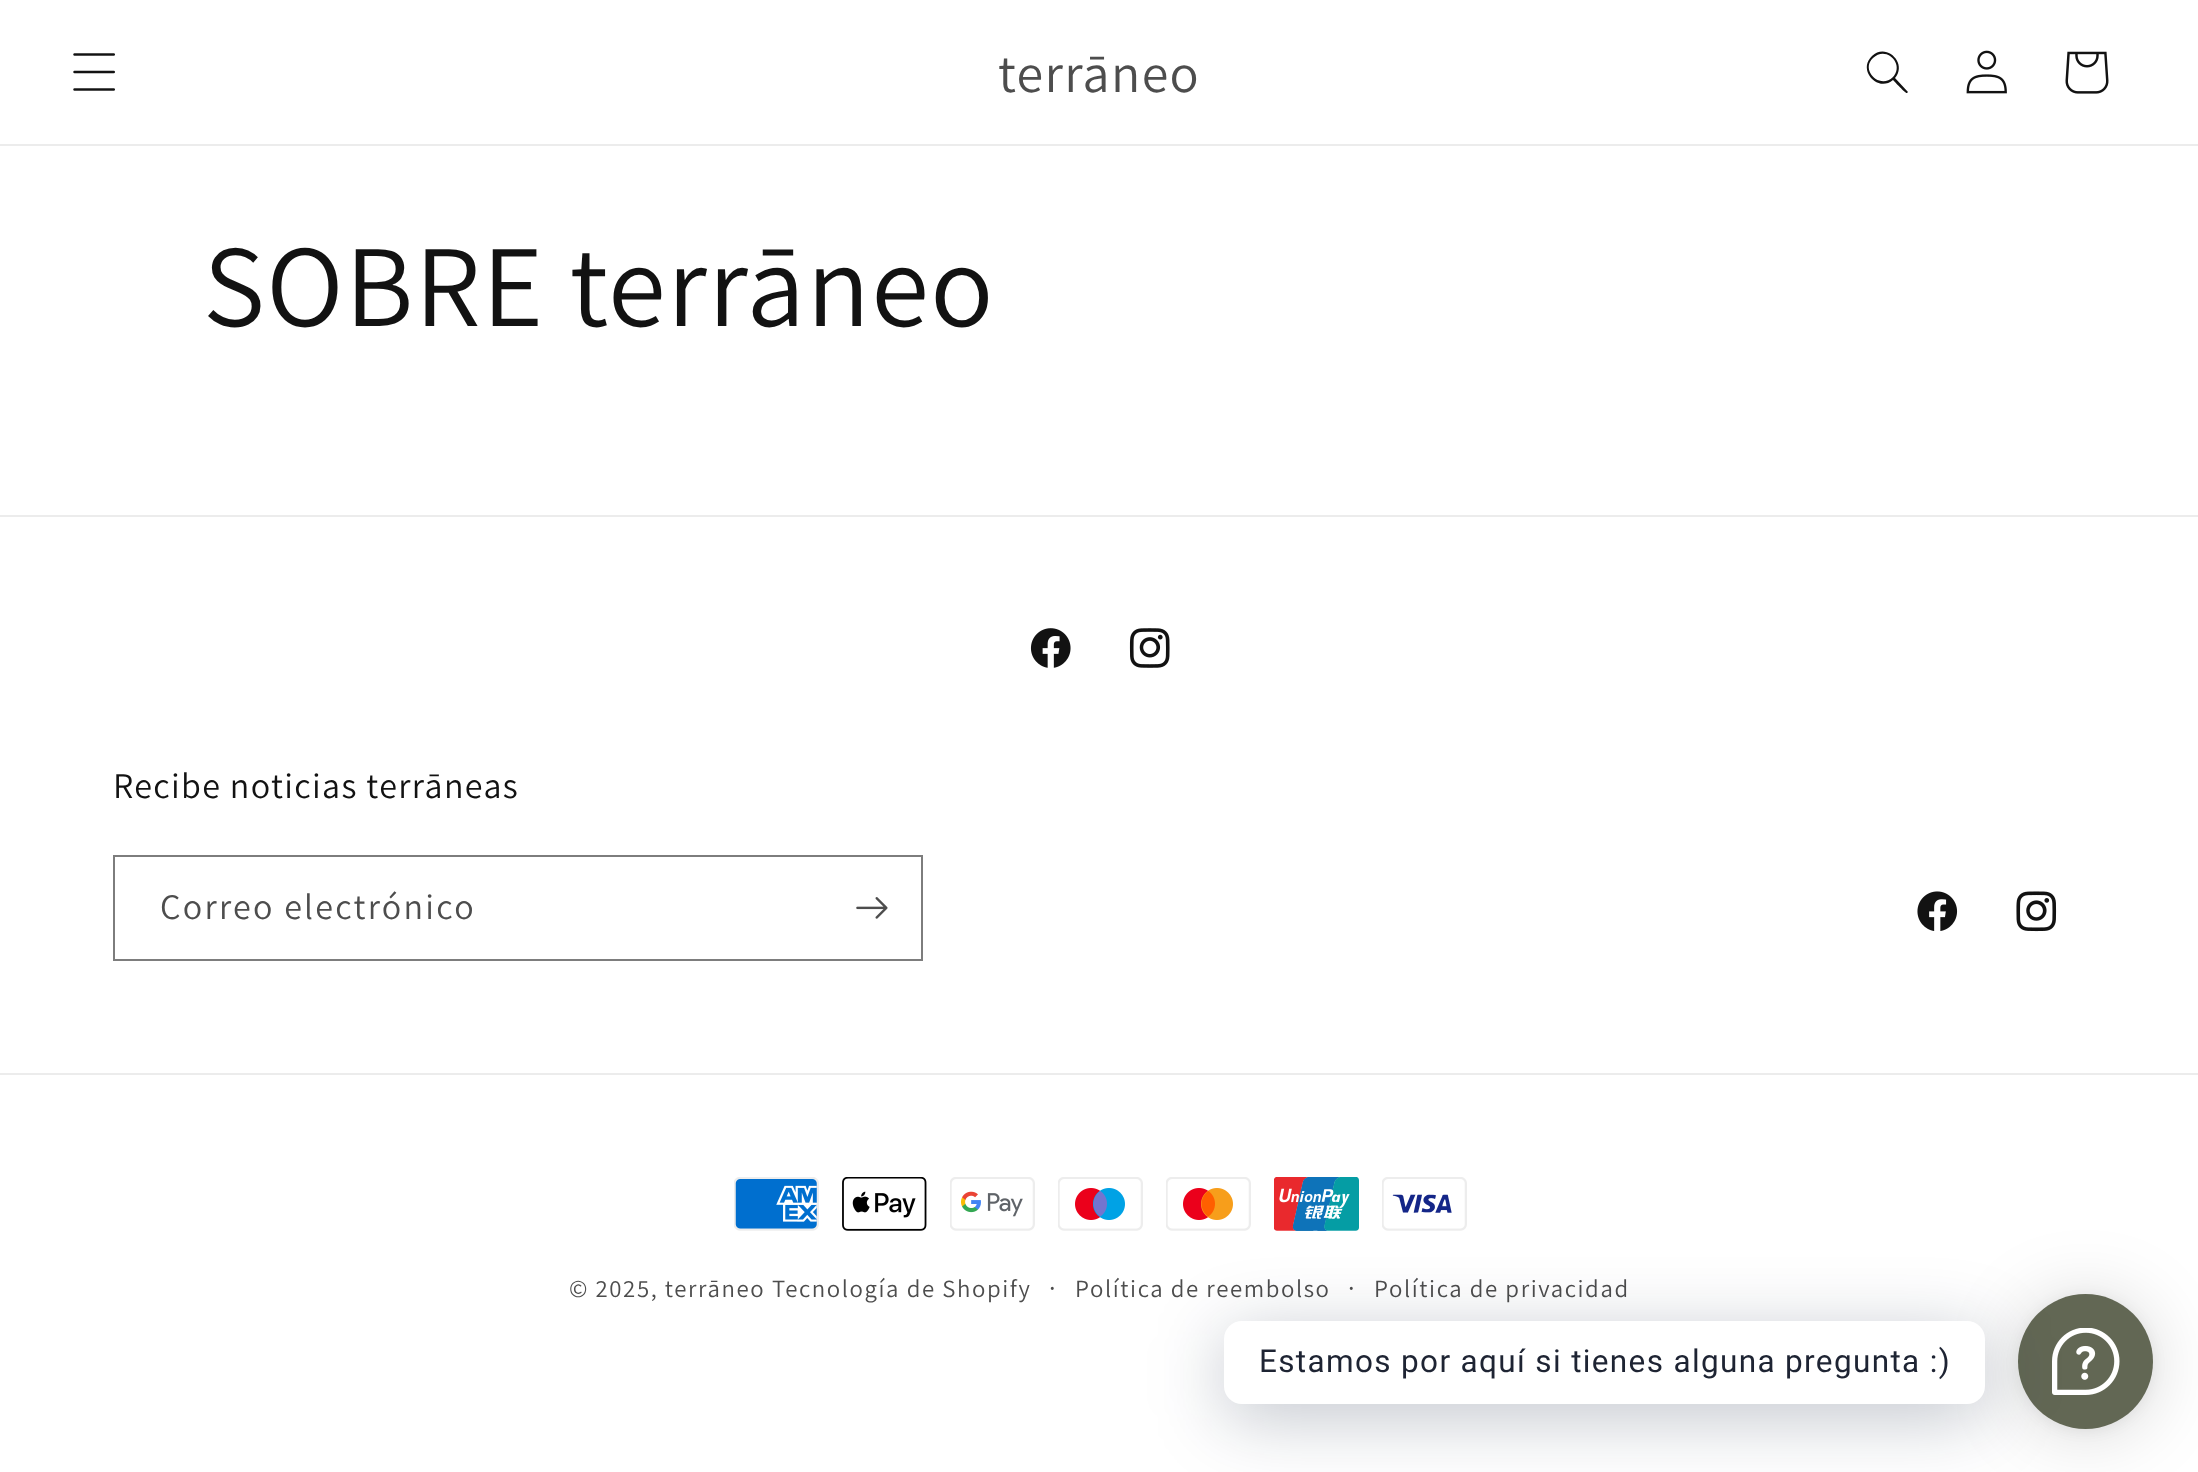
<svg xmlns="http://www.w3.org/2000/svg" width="2198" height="1472">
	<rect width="100%" height="100%" fill="#FFFFFF" />
	<rect x="0" y="144" width="2198" height="2" fill="#ECECEC" />
	<image x="73" y="53" width="42" height="38" href="assets/img1.png" />
	<text x="998" y="92" font-family="Assistant" font-size="54" letter-spacing="1.35" fill="#4D4D4D">terrāneo</text>
	<path d="M1893 77C1880 90 1860 70 1873 58C1886 45 1905 64 1893 77ZM1893 80C1878 93 1857 70 1872 56C1886 42 1908 63 1895 78L1908 92L1907 93C1906 94 1895 82 1893 80Z" fill="#121212" fill-rule="evenodd" />
	<image x="1966" y="50" width="41" height="44" href="assets/img2.png" />
	<image x="2065" y="51" width="44" height="43" href="assets/img3.png" />
	<text x="203" y="326" font-family="Assistant" font-size="117" letter-spacing="1.35" fill="#121212">SOBRE terrāneo</text>
	<rect x="0" y="515" width="2198" height="2" fill="#ECECEC" />
	<image x="1030" y="628" width="41" height="40" href="assets/img4.png" />
	<image x="1129" y="628" width="41" height="40" href="assets/img5.png" />
	<text x="113" y="798" font-family="Assistant" font-size="36" letter-spacing="1.35" fill="#121212">Recibe noticias terrāneas</text>
	<rect x="114" y="856" width="808" height="104" fill="none" stroke="#7D7D7D" stroke-width="2" />
	<text x="160" y="919" font-family="Assistant" font-size="36" letter-spacing="2.25" fill="#4D4D4D">Correo electrónico</text>
	<image x="856" y="897" width="32" height="22" href="assets/img6.png" />
	<image x="1917" y="891" width="41" height="40" href="assets/img7.png" />
	<image x="2016" y="891" width="41" height="41" href="assets/img8.png" />
	<rect x="0" y="1073" width="2198" height="2" fill="#ECECEC" />
	<image x="734" y="1177" width="85" height="54" href="assets/img9.png" />
	<image x="842" y="1177" width="85" height="54" href="assets/img10.png" />
	<image x="950" y="1177" width="85" height="54" href="assets/img11.png" />
	<image x="1058" y="1177" width="85" height="54" href="assets/img12.png" />
	<image x="1166" y="1177" width="85" height="54" href="assets/img13.png" />
	<image x="1274" y="1177" width="85" height="54" href="assets/img14.png" />
	<image x="1382" y="1177" width="85" height="54" href="assets/img15.png" />
	<g font-family="Assistant" font-size="24.75" letter-spacing="1.6" fill="#4D4D4D">
		<text x="569" y="1297">© 2025, terrāneo</text>
		<text x="772" y="1297">Tecnología de Shopify</text>
	</g>
	<text x="1049" y="1297" font-family="Assistant" font-size="27" letter-spacing="1.6" fill="#4D4D4D">·</text>
	<text x="1075" y="1297" font-family="Assistant" font-size="24.75" letter-spacing="1.6" fill="#4D4D4D">Política de reembolso</text>
	<text x="1348" y="1297" font-family="Assistant" font-size="27" letter-spacing="1.6" fill="#4D4D4D">·</text>
	<text x="1374" y="1297" font-family="Assistant" font-size="24.75" letter-spacing="1.6" fill="#4D4D4D">Política de privacidad</text>
	<rect x="2018" y="1298" width="135" height="135" rx="67.5" fill="#000000" fill-opacity="0.16" filter="blur(36px)" />
	<rect x="2018" y="1296" width="135" height="135" rx="67.5" fill="#000000" fill-opacity="0.06" filter="blur(7px)" />
	<circle cx="2085.5" cy="1361.5" r="67.5" fill="#626754" />
	<rect x="1224" y="1334" width="761" height="84" rx="18" fill="#00122E" fill-opacity="0.24" filter="blur(36px)" />
	<rect x="1224" y="1321" width="761" height="83" rx="18" fill="#FFFFFF" />
	<text x="1259" y="1372" font-family="Roboto" font-size="31.5" letter-spacing="1.35" fill="#1E2433">Estamos por aquí si tienes alguna pregunta :)</text>
	<image x="2052" y="1328" width="68" height="67" href="assets/img16.png" />
</svg>
